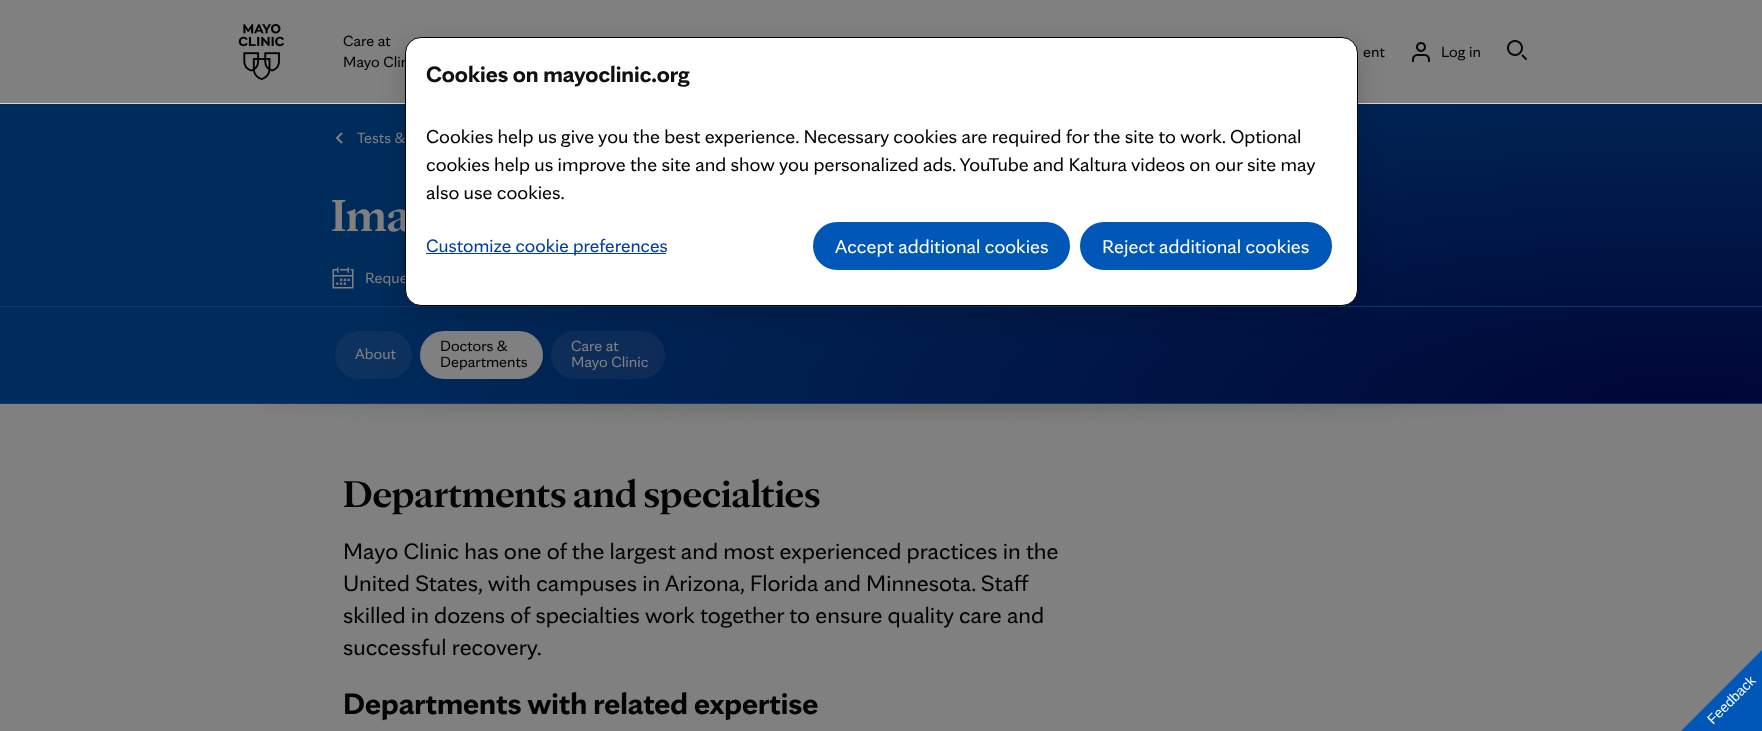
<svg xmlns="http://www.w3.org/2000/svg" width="1762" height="731">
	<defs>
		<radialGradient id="g1" gradientUnits="userSpaceOnUse" cx="0" cy="0" r="1" gradientTransform="matrix(1405 0 0 401 1686 403)"><stop offset="0" stop-color="#000636" /><stop offset="1" stop-color="#002C5C" /></radialGradient>
	</defs>
	<rect width="100%" height="100%" fill="#808080" />
	<rect x="0" y="103" width="1762" height="1" fill="#D6D6D6" />
	<image x="238" y="24" width="46" height="56" href="assets/img1.png" />
	<g font-family="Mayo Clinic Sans" font-size="16" fill="#040404">
		<text x="343" y="46">Care at</text>
		<text x="343" y="67">Mayo Clin</text>
		<text x="1363" y="57">ent</text>
	</g>
	<image x="1412" y="42" width="18" height="20" href="assets/img2.png" />
	<text x="1441" y="57" font-family="Mayo Clinic Sans" font-size="16" fill="#040404">Log in</text>
	<image x="1507" y="40" width="20" height="20" href="assets/img3.png" />
	<rect x="0" y="104" width="1762" height="299" fill="url(#g1)" />
	<rect x="0" y="403" width="1762" height="1" fill="#0A396B" />
	<image x="335" y="132" width="8" height="12" href="assets/img4.png" />
	<text x="357" y="143" font-family="Mayo Clinic Sans" font-size="16" fill="#808080">Tests &amp;</text>
	<text x="331" y="231" font-family="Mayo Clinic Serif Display" font-size="48" font-weight="700" fill="#808080">Ima</text>
	<image x="332" y="267" width="22" height="22" href="assets/img5.png" />
	<text x="365" y="283" font-family="Mayo Clinic Sans" font-size="16" fill="#808080">Reque</text>
	<rect x="0" y="306" width="1762" height="1" fill="#0A396B" />
	<rect x="335" y="331" width="77" height="48" rx="24" fill="#808080" fill-opacity="0.1" />
	<text x="355" y="359" font-family="Mayo Clinic Sans" font-size="16" fill="#808080">About</text>
	<rect x="420" y="331" width="123" height="48" rx="24" fill="#808080" />
	<g font-family="Mayo Clinic Sans" font-size="16" fill="#040404">
		<text x="440" y="351">Doctors &amp;</text>
		<text x="440" y="367">Departments</text>
	</g>
	<rect x="551" y="331" width="114" height="48" rx="24" fill="#808080" fill-opacity="0.1" />
	<g font-family="Mayo Clinic Sans" font-size="16" fill="#808080">
		<text x="571" y="351">Care at</text>
		<text x="571" y="367">Mayo Clinic</text>
	</g>
	<image x="259" y="404" width="1244" height="18" href="assets/img6.png" />
	<text x="343" y="507" font-family="Mayo Clinic Serif Display" font-size="40" font-weight="700" fill="#040404">Departments and specialties</text>
	<g font-family="Mayo Clinic Sans" font-size="24" fill="#040404">
		<text x="343" y="559">Mayo Clinic has one of the largest and most experienced practices in the</text>
		<text x="343" y="591">United States, with campuses in Arizona, Florida and Minnesota. Staff</text>
		<text x="343" y="623">skilled in dozens of specialties work together to ensure quality care and</text>
		<text x="343" y="655">successful recovery.</text>
	</g>
	<text x="343" y="714" font-family="Mayo Clinic Sans" font-size="32" font-weight="700" fill="#040404">Departments with related expertise</text>
	<rect x="405" y="45" width="953" height="269" rx="16" fill="#000000" fill-opacity="0.16" filter="blur(12px)" />
	<rect x="405.5" y="37.5" width="952" height="268" rx="15.5" fill="#FFFFFF" stroke="#000000" />
	<text x="426" y="82" font-family="Mayo Clinic Sans" font-size="24" font-weight="700" fill="#111111">Cookies on mayoclinic.org</text>
	<g font-family="Mayo Clinic Sans" font-size="20" fill="#040404">
		<text x="426" y="143">Cookies help us give you the best experience. Necessary cookies are required for the site to work. Optional</text>
		<text x="426" y="171">cookies help us improve the site and show you personalized ads. YouTube and Kaltura videos on our site may</text>
		<text x="426" y="199">also use cookies.</text>
	</g>
	<rect x="426" y="253" width="240" height="1" fill="#003DA5" />
	<text x="426" y="252" font-family="Mayo Clinic Sans" font-size="19.25" fill="#003DA5">Customize cookie preferences</text>
	<rect x="814" y="223" width="255" height="46" rx="23" fill="#0057B8" stroke="#0057B8" stroke-width="2" />
	<text x="835" y="253" font-family="Mayo Clinic Sans" font-size="20" fill="#FFFFFF">Accept additional cookies</text>
	<rect x="1081" y="223" width="250" height="46" rx="23" fill="#0057B8" stroke="#0057B8" stroke-width="2" />
	<text x="1102" y="253" font-family="Mayo Clinic Sans" font-size="20" fill="#FFFFFF">Reject additional cookies</text>
	<path d="M1762 731H1681L1762 650Z" fill="#0057B8" />
	<text x="1713" y="725" transform="rotate(-45 1713 725)" font-family="Liberation Sans" font-size="14" fill="#FFFFFF">Feedback</text>
</svg>
